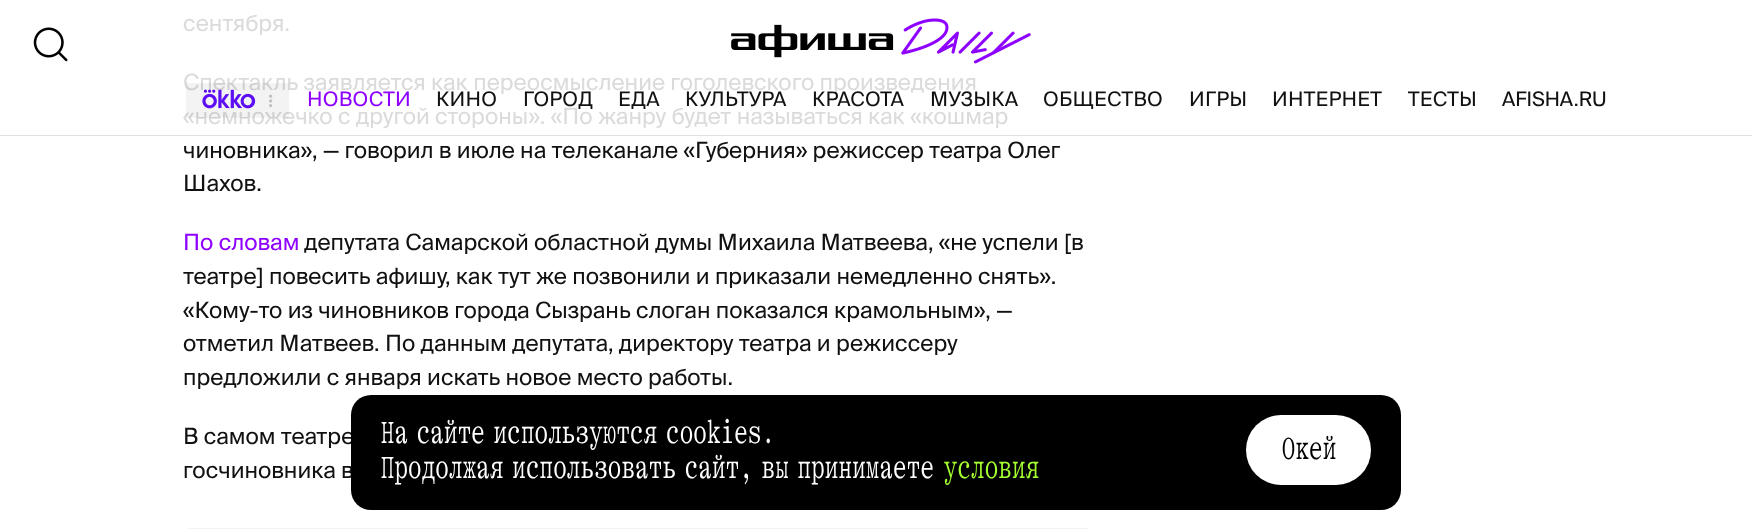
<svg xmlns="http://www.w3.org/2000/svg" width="1752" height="529">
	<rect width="100%" height="100%" fill="#FFFFFF" />
	<g font-family="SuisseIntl" font-size="22.5" fill="#DBDBDB">
		<text x="183" y="31">сентября.</text>
		<text x="183" y="90">Спектакль заявляется как переосмысление гоголевского произведения</text>
		<text x="183" y="124">«немножечко с другой стороны». «По жанру будет называться как «кошмар</text>
	</g>
	<g font-family="SuisseIntl" font-size="22.5" fill="#111111">
		<text x="183" y="158">чиновника», — говорил в июле на телеканале «Губерния» режиссер театра Олег</text>
		<text x="183" y="191">Шахов.</text>
	</g>
	<text x="183" y="250" font-family="SuisseIntl" font-size="22.5" fill="#8E00FF">По словам</text>
	<g font-family="SuisseIntl" font-size="22.5" fill="#111111">
		<text x="304" y="250">депутата Самарской областной думы Михаила Матвеева, «не успели [в</text>
		<text x="183" y="284">театре] повесить афишу, как тут же позвонили и приказали немедленно снять».</text>
		<text x="183" y="318">«Кому-то из чиновников города Сызрань слоган показался крамольным», —</text>
		<text x="183" y="351">отметил Матвеев. По данным депутата, директору театра и режиссеру</text>
		<text x="183" y="385">предложили с января искать новое место работы.</text>
		<text x="183" y="444">В самом театре</text>
		<text x="183" y="478">госчиновника в</text>
	</g>
	<rect x="183" y="528" width="912" height="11" rx="10" fill="#F2F2F2" />
	<image x="731" y="18" width="300" height="46" href="assets/img1.png" />
	<rect x="0" y="135" width="1752" height="1" fill="#E0E0E0" />
	<image x="33" y="27" width="35" height="35" href="assets/img2.png" />
	<rect x="186" y="83" width="103" height="35" fill="#1A1A1A" fill-opacity="0.05" />
	<image x="202" y="89" width="54" height="20" href="assets/img3.png" />
	<circle cx="270.6" cy="96.2" r="1.6" fill="#BFBFBF" />
	<circle cx="270.6" cy="100.9" r="1.6" fill="#BFBFBF" />
	<circle cx="270.6" cy="105.6" r="1.6" fill="#BFBFBF" />
	<text x="307" y="106" font-family="SuisseIntl" font-size="20" letter-spacing="0.25" fill="#8E00FF">НОВОСТИ</text>
	<g font-family="SuisseIntl" font-size="20" letter-spacing="0.25" fill="#111111">
		<text x="436" y="106">КИНО</text>
		<text x="523" y="106">ГОРОД</text>
		<text x="618" y="106">ЕДА</text>
		<text x="685" y="106">КУЛЬТУРА</text>
		<text x="812" y="106">КРАСОТА</text>
		<text x="930" y="106">МУЗЫКА</text>
		<text x="1043" y="106">ОБЩЕСТВО</text>
		<text x="1189" y="106">ИГРЫ</text>
		<text x="1272" y="106">ИНТЕРНЕТ</text>
		<text x="1408" y="106">ТЕСТЫ</text>
	</g>
	<text x="1502" y="106" font-family="SuisseIntl" font-size="20" fill="#111111">AFISHA.RU</text>
	<rect x="351" y="395" width="1050" height="115" rx="20" fill="#000000" />
	<g font-family="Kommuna" font-size="32.5" letter-spacing="0.65" fill="#FFFFFF">
		<text x="381" y="443" word-spacing="-5">На сайте используются cookies.</text>
		<text x="381" y="478" word-spacing="-5">Продолжая использовать сайт, вы принимаете</text>
	</g>
	<text x="944" y="478" font-family="Kommuna" font-size="32.5" letter-spacing="0.65" fill="#A4FF30">условия</text>
	<rect x="1246" y="415" width="125" height="70" rx="35" fill="#FFFFFF" />
	<text x="1282" y="459" font-family="Kommuna" font-size="32.5" letter-spacing="0.65" fill="#000000">Окей</text>
</svg>
